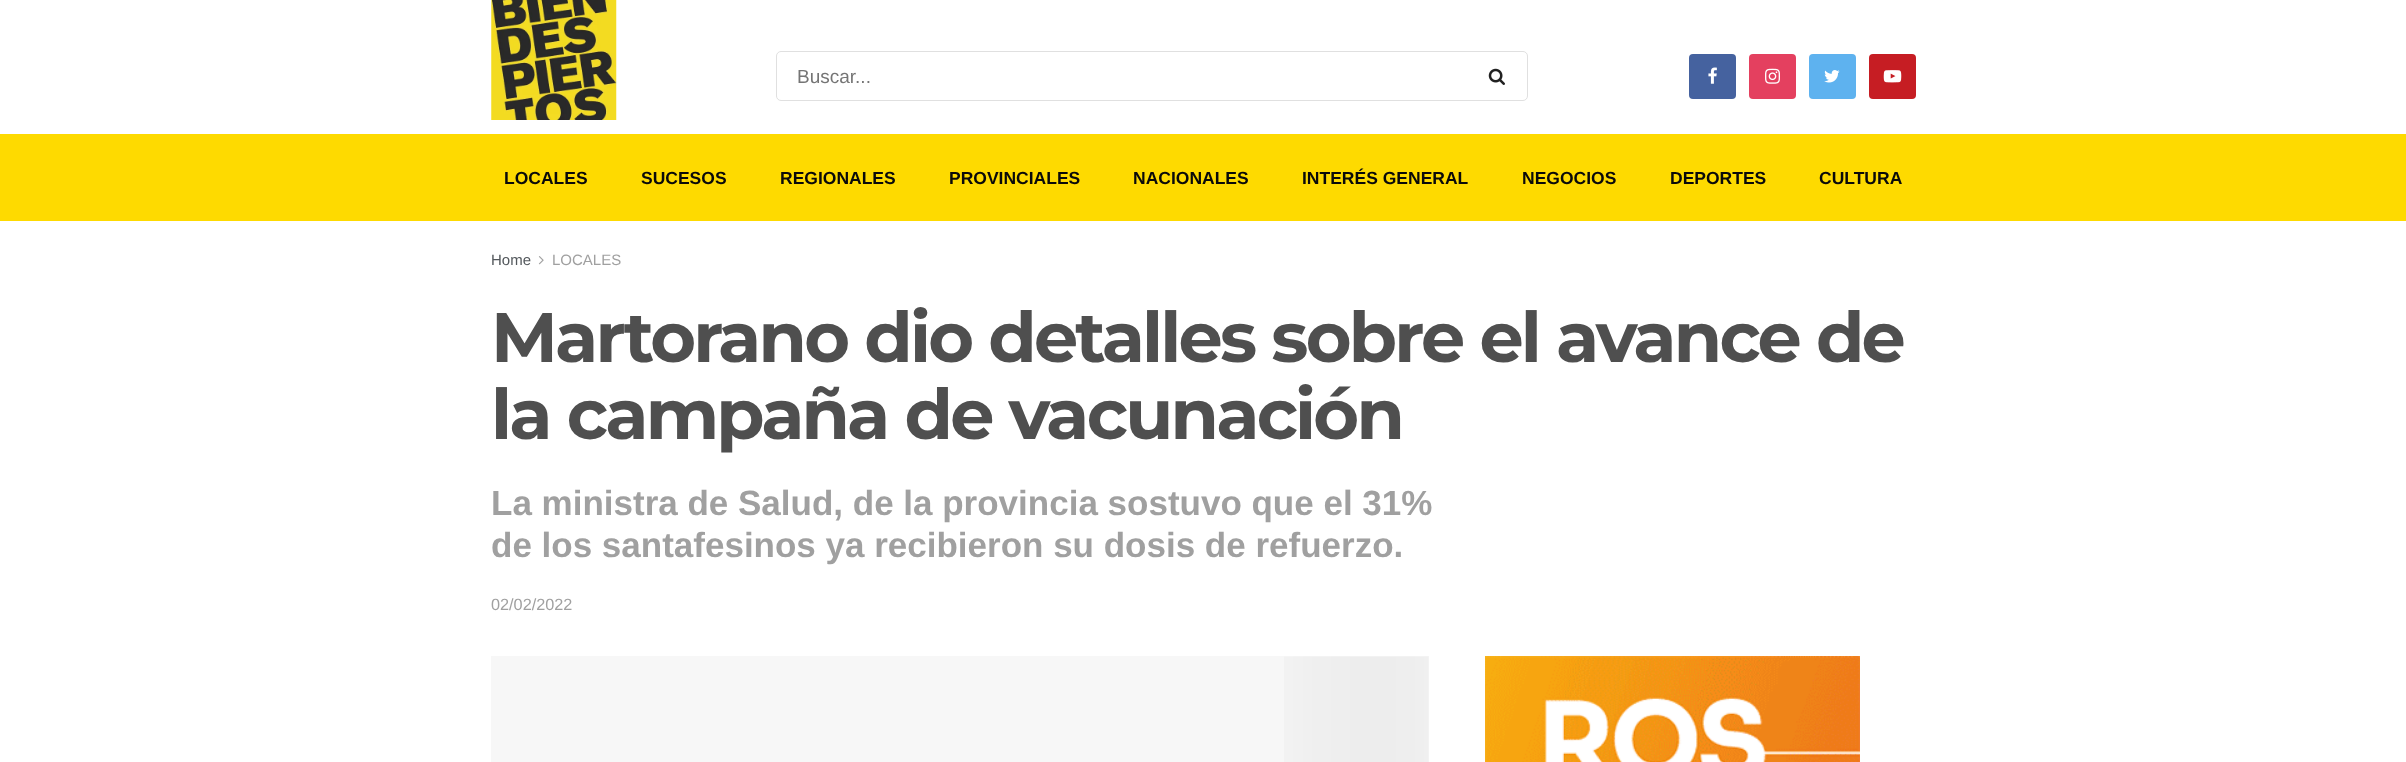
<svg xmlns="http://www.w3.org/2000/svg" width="2406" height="762">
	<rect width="100%" height="100%" fill="#FFFFFF" />
	<image x="491" y="0" width="126" height="120" href="assets/img1.png" />
	<rect x="776.5" y="51.5" width="751" height="49" rx="4.5" fill="none" stroke="#E0E0E0" />
	<text x="797" y="83" font-family="Liberation Sans" font-size="19" fill="#757575">Buscar...</text>
	<image x="1488" y="68" width="17" height="17" href="assets/img2.png" />
	<rect x="1689" y="54" width="47" height="45" rx="4" fill="#45629F" />
	<image x="1708" y="67" width="9" height="17" href="assets/img3.png" />
	<rect x="1749" y="54" width="47" height="45" rx="4" fill="#E4405F" />
	<image x="1765" y="68" width="15" height="16" href="assets/img4.png" />
	<rect x="1809" y="54" width="47" height="45" rx="4" fill="#5EB2EF" />
	<image x="1824" y="70" width="16" height="13" href="assets/img5.png" />
	<rect x="1869" y="54" width="47" height="45" rx="4" fill="#C61D23" />
	<image x="1883" y="70" width="19" height="13" href="assets/img6.png" />
	<rect x="0" y="134" width="2406" height="87" fill="#FEDA00" />
	<g font-family="Liberation Sans" font-size="17.5" font-weight="700" fill="#0A0A0A">
		<text x="504" y="184">LOCALES</text>
		<text x="641" y="184">SUCESOS</text>
		<text x="780" y="184">REGIONALES</text>
		<text x="949" y="184">PROVINCIALES</text>
		<text x="1133" y="184">NACIONALES</text>
		<text x="1302" y="184">INTERÉS GENERAL</text>
		<text x="1522" y="184">NEGOCIOS</text>
		<text x="1670" y="184">DEPORTES</text>
		<text x="1819" y="184">CULTURA</text>
	</g>
	<text x="491" y="265" font-family="Liberation Sans" font-size="15" fill="#53585C">Home</text>
	<image x="538" y="256" width="6" height="9" href="assets/img7.png" />
	<text x="552" y="265" font-family="Liberation Sans" font-size="15" fill="#A0A0A0">LOCALES</text>
	<g font-family="Montserrat" font-size="70" font-weight="700" letter-spacing="-2.8" fill="#4F4F4F">
		<text x="491" y="362">Martorano dio detalles sobre el avance de</text>
		<text x="491" y="439">la campaña de vacunación</text>
	</g>
	<g font-family="Liberation Sans" font-size="35" font-weight="700" fill="#A0A0A0">
		<text x="491" y="515">La ministra de Salud, de la provincia sostuvo que el 31%</text>
		<text x="491" y="557">de los santafesinos ya recibieron su dosis de refuerzo.</text>
	</g>
	<text x="491" y="610" font-family="Liberation Sans" font-size="16.25" fill="#A0A0A0">02/02/2022</text>
	<rect x="491" y="656" width="938" height="106" fill="#F7F7F7" />
	<image x="1284" y="656" width="145" height="106" href="assets/img8.png" />
	<image x="1485" y="656" width="375" height="106" href="assets/img9.png" />
</svg>
